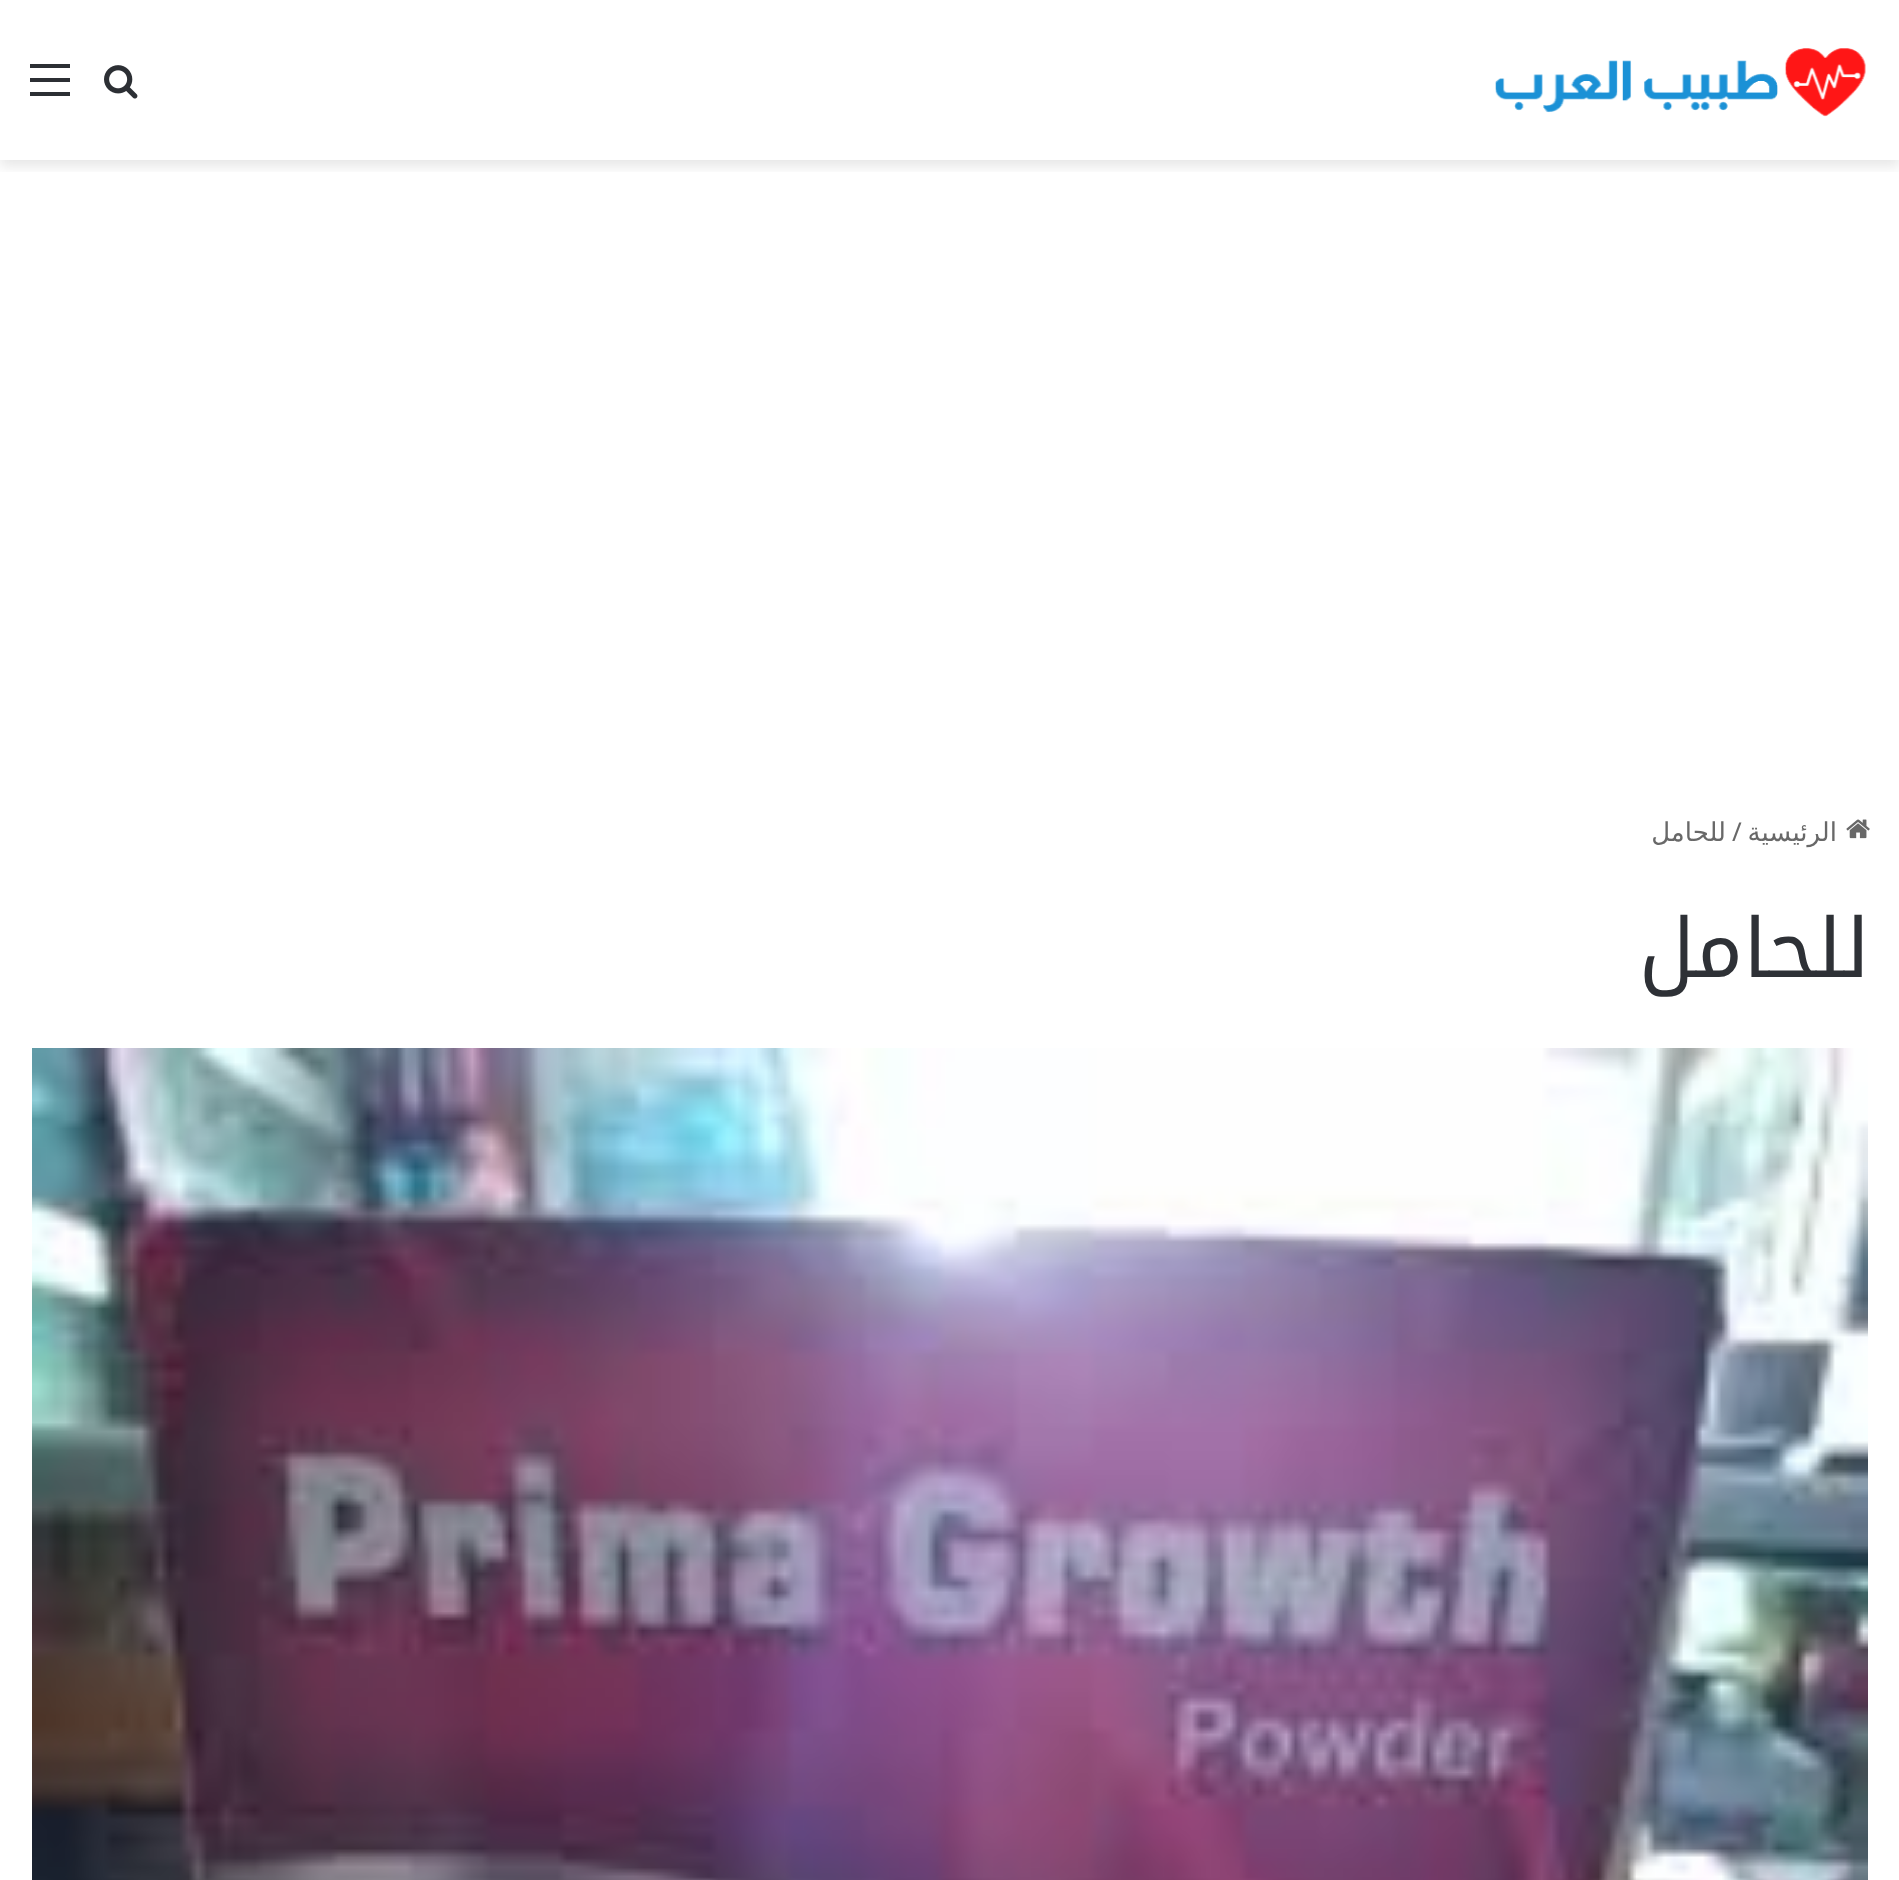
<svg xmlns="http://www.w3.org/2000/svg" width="1899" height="1880">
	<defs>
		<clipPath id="clip1"><rect x="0" y="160" width="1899" height="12" /></clipPath>
	</defs>
	<rect width="100%" height="100%" fill="#FFFFFF" />
	<g clip-path="url(#clip1)">
		<rect x="0" y="6" width="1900" height="160" fill="#000000" fill-opacity="0.1" filter="blur(7px)" />
	</g>
	<image x="1495" y="48" width="371" height="69" href="assets/img1.png" />
	<image x="104" y="65" width="34" height="34" href="assets/img2.png" />
	<rect x="30" y="78" width="40" height="4" fill="#2C2F34" />
	<rect x="30" y="64" width="40" height="4" fill="#2C2F34" />
	<rect x="30" y="92" width="40" height="4" fill="#2C2F34" />
	<image x="1846" y="819" width="24" height="20" href="assets/img3.png" />
	<text x="1837" y="841" font-family="DejaVu Sans" font-size="26" direction="rtl" fill="#686868">الرئيسية</text>
	<text x="1732" y="841" font-family="Noto Kufi Arabic" font-size="26" fill="#686868">/</text>
	<text x="1726" y="841" font-family="DejaVu Sans" font-size="26" direction="rtl" fill="#686868">للحامل</text>
	<text x="1870" y="977" font-family="'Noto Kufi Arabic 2'" font-size="82" direction="rtl" fill="#2E3136">للحامل</text>
	<image x="32" y="1048" width="1836" height="832" href="assets/img4.png" />
</svg>
